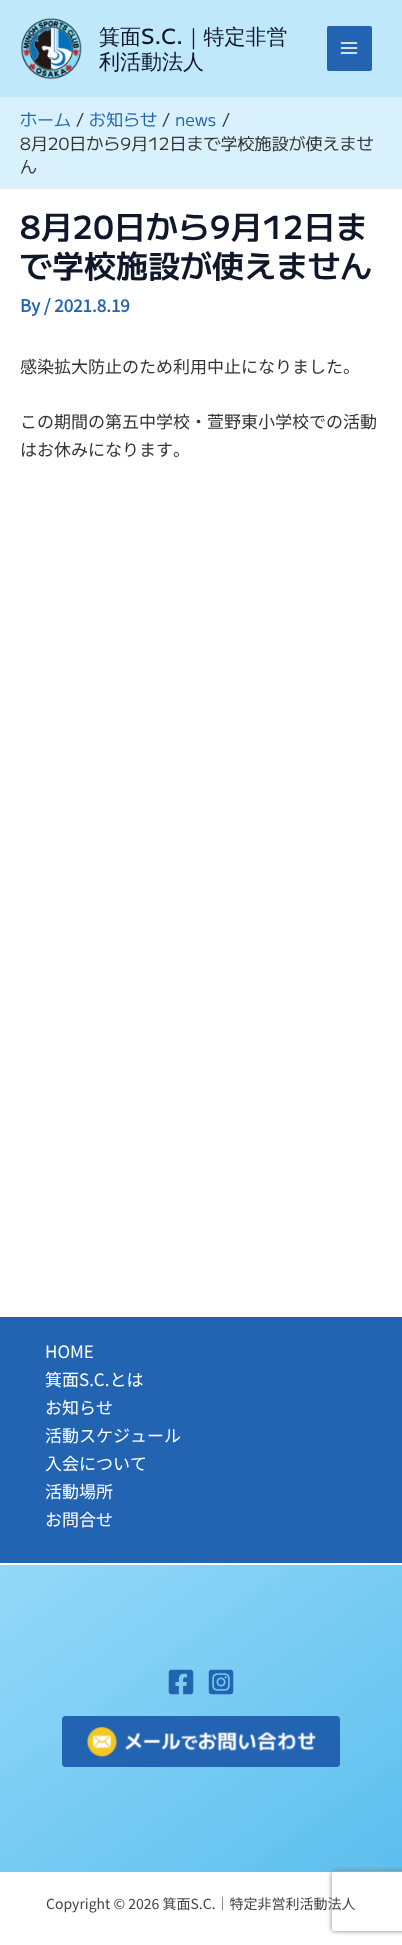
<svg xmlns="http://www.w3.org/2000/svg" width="402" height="1945">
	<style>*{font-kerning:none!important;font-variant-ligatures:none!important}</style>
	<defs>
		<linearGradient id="g1" gradientUnits="userSpaceOnUse" x1="59" y1="1522" x2="343" y2="1915"><stop offset="0" stop-color="#94D8F8" /><stop offset="1" stop-color="#5CBFEE" /></linearGradient>
		<clipPath id="clip1"><path d="M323 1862H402V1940H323ZM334 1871H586C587 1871 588 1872 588 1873V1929C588 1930 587 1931 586 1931H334C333 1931 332 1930 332 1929V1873C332 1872 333 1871 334 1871Z" clip-rule="evenodd" /></clipPath>
	</defs>
	<rect width="100%" height="100%" fill="#FFFFFF" />
	<rect x="0" y="0" width="402" height="97" fill="#BFE8FB" />
	<image x="20" y="18" width="62" height="62" href="assets/img1.png" />
	<text x="99" y="44" font-family="WenQuanYi Zen Hei" font-size="21" font-weight="500" fill="#0F172A">箕面</text>
	<text x="141" y="44" font-family="'M PLUS 1'" font-size="21" font-weight="500" fill="#0F172A">S.C.</text>
	<g font-family="WenQuanYi Zen Hei" font-size="21" font-weight="500" fill="#0F172A">
		<text x="183" y="44">｜特定非営</text>
		<text x="99" y="69">利活動法人</text>
	</g>
	<rect x="327" y="26" width="45" height="45" rx="2" fill="#2264B2" />
	<image x="340" y="42" width="18" height="12" href="assets/img2.png" />
	<rect x="0" y="97" width="402" height="91" fill="#D8F1FD" />
	<rect x="0" y="188" width="402" height="1" fill="#EAEAEA" />
	<text x="20" y="126" font-family="'M PLUS 1'" font-size="17" fill="#2264B2">ホーム</text>
	<text x="76" y="126" font-family="'M PLUS 1'" font-size="17" fill="#333333">/</text>
	<text x="89" y="126" font-family="'M PLUS 1'" font-size="17" fill="#2264B2">お知らせ</text>
	<text x="162" y="126" font-family="'M PLUS 1'" font-size="17" fill="#333333">/</text>
	<text x="175" y="126" font-family="'M PLUS 1'" font-size="17" fill="#2264B2">news</text>
	<g font-family="'M PLUS 1'" font-size="17" fill="#333333">
		<text x="222" y="126">/</text>
		<text x="20" y="150">8月20日から9月12日まで学校施設が使えませ</text>
		<text x="20" y="173">ん</text>
	</g>
	<g font-family="'M PLUS 1'" font-size="32" font-weight="600" fill="#0F172A">
		<text x="20" y="239">8月20日から9月12日ま</text>
		<text x="20" y="278">で学校施設が使えません</text>
	</g>
	<text x="20" y="312" font-family="Noto Sans JP" font-size="17" font-weight="700" fill="#2264B2">By / 2021.8.19</text>
	<g font-family="Noto Sans JP" font-size="17" font-weight="100" fill="#333333">
		<text x="20" y="373">感染拡大防止のため利用中止になりました。</text>
		<text x="20" y="428">この期間の第五中学校・萱野東小学校での活動</text>
		<text x="20" y="456">はお休みになります。</text>
	</g>
	<rect x="0" y="1317" width="402" height="246" fill="#2264B2" />
	<g font-family="Noto Sans JP" font-size="17" font-weight="100" fill="#FFFFFF">
		<text x="45" y="1358">HOME</text>
		<text x="45" y="1386">箕面S.C.とは</text>
		<text x="45" y="1414">お知らせ</text>
		<text x="45" y="1442">活動スケジュール</text>
		<text x="45" y="1470">入会について</text>
		<text x="45" y="1498">活動場所</text>
		<text x="45" y="1526">お問合せ</text>
	</g>
	<rect x="0" y="1565" width="402" height="307" fill="url(#g1)" />
	<image x="168" y="1669" width="26" height="26" href="assets/img3.png" />
	<image x="208" y="1669" width="26" height="26" href="assets/img4.png" />
	<image x="62" y="1716" width="278" height="51" href="assets/img5.png" />
	<text x="46" y="1909" font-family="Noto Sans JP" font-size="14" font-weight="100" fill="#444444">Copyright © 2026 箕面S.C.｜特定非営利活動法人</text>
	<g clip-path="url(#clip1)">
		<rect x="332" y="1871" width="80" height="60" rx="2" fill="#808080" filter="blur(2.5px)" />
	</g>
</svg>
